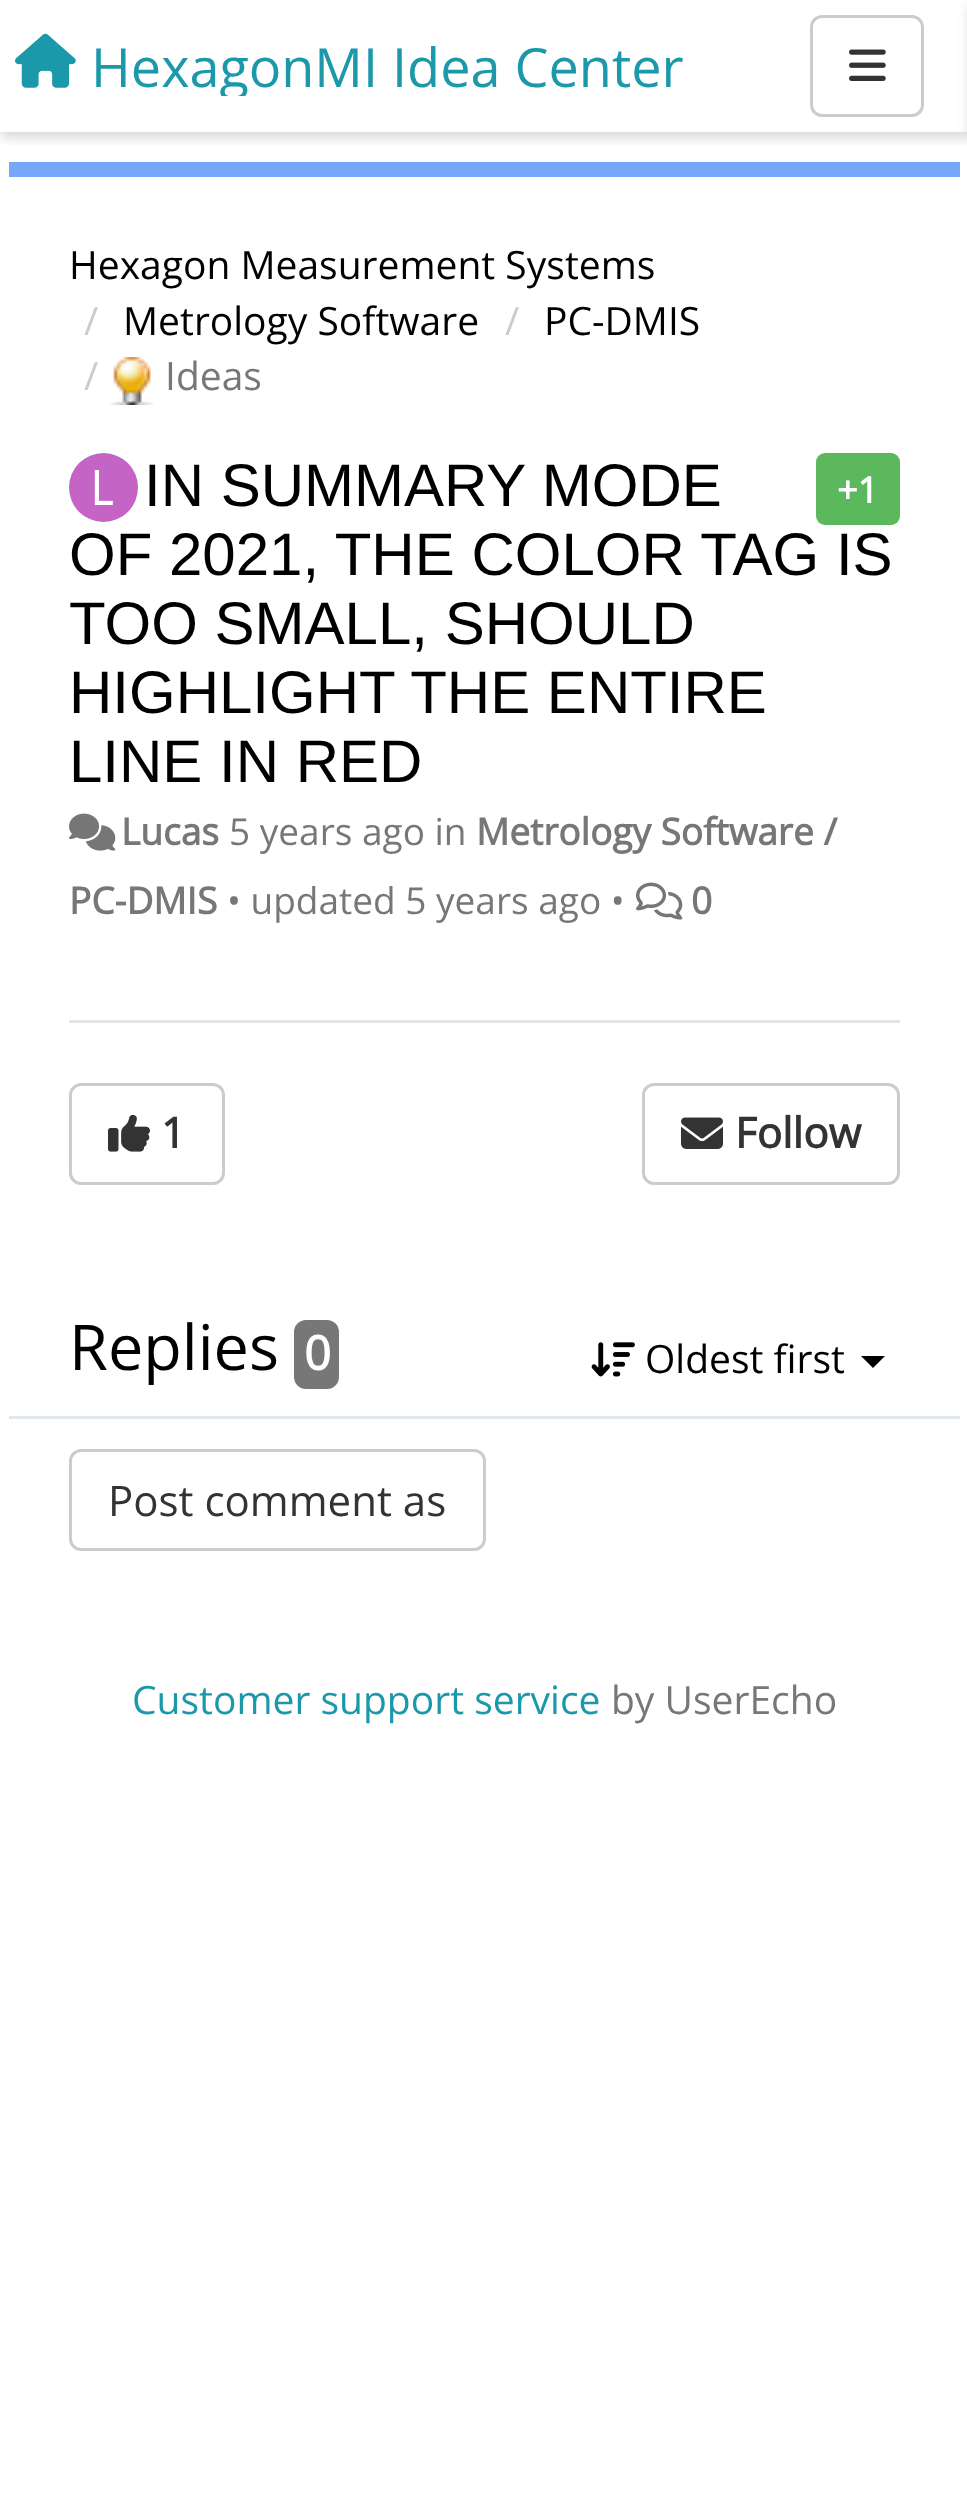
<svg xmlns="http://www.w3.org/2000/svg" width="967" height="2500">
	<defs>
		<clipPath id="clip1"><rect x="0" y="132" width="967" height="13" /></clipPath>
		<clipPath id="clip2"><rect x="90" y="36" width="594" height="60" /></clipPath>
	</defs>
	<rect width="100%" height="100%" fill="#FFFFFF" />
	<g clip-path="url(#clip1)">
		<rect x="0" y="6" width="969" height="132" fill="#000000" fill-opacity="0.15" filter="blur(6px)" />
	</g>
	<image x="15" y="33" width="61" height="55" href="assets/img1.png" />
	<g clip-path="url(#clip2)">
		<text x="91" y="87" font-family="Open Sans" font-size="54" fill="#1B98AA">HexagonMI Idea Center</text>
	</g>
	<rect x="811.5" y="16.5" width="111" height="99" rx="10.5" fill="none" stroke="#CCCCCC" stroke-width="3" />
	<image x="849" y="49" width="37" height="32" href="assets/img2.png" />
	<rect x="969" y="6" width="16" height="132" fill="#000000" fill-opacity="0.15" filter="blur(6px)" />
	<rect x="9" y="162" width="951" height="15" fill="#76A7FA" />
	<text x="69" y="279" font-family="Open Sans" font-size="39" fill="#000000">Hexagon Measurement Systems</text>
	<text x="84" y="335" font-family="Open Sans" font-size="39" fill="#CCCCCC">/</text>
	<text x="123" y="335" font-family="Open Sans" font-size="39" fill="#000000">Metrology Software</text>
	<text x="505" y="335" font-family="Open Sans" font-size="39" fill="#CCCCCC">/</text>
	<text x="544" y="335" font-family="Open Sans" font-size="39" fill="#000000">PC-DMIS</text>
	<text x="84" y="390" font-family="Open Sans" font-size="39" fill="#CCCCCC">/</text>
	<image x="110" y="357" width="44" height="48" href="assets/img3.png" />
	<text x="165" y="390" font-family="Open Sans" font-size="39" fill="#777777">Ideas</text>
	<circle cx="103.5" cy="487.5" r="34.5" fill="#C464C4" />
	<image x="94" y="470" width="19" height="35" href="assets/img4.png" />
	<g font-family="Liberation Sans" font-size="60" fill="#000000">
		<text x="144" y="506">IN SUMMARY MODE</text>
		<text x="69" y="575">OF 2021, THE COLOR TAG IS</text>
		<text x="69" y="644">TOO SMALL, SHOULD</text>
		<text x="69" y="713">HIGHLIGHT THE ENTIRE</text>
		<text x="69" y="782">LINE IN RED</text>
	</g>
	<rect x="816" y="453" width="84" height="72" rx="9" fill="#5CB85C" />
	<text x="837" y="503" font-family="Open Sans" font-size="36" font-weight="700" fill="#FFFFFF">+1</text>
	<image x="69" y="813" width="47" height="38" href="assets/img5.png" />
	<text x="121" y="845" font-family="Open Sans" font-size="37" font-weight="700" fill="#777777">Lucas</text>
	<text x="229" y="845" font-family="Open Sans" font-size="37" fill="#777777">5 years ago in</text>
	<g font-family="Open Sans" font-size="37" font-weight="700" fill="#777777">
		<text x="476" y="845">Metrology Software /</text>
		<text x="69" y="914">PC-DMIS</text>
	</g>
	<text x="227" y="914" font-family="Open Sans" font-size="37" fill="#777777">• updated 5 years ago •</text>
	<image x="636" y="882" width="47" height="38" href="assets/img6.png" />
	<text x="691" y="914" font-family="Open Sans" font-size="37" font-weight="700" fill="#777777">0</text>
	<rect x="69" y="1020" width="831" height="3" fill="#E5E5E5" />
	<rect x="70.5" y="1084.5" width="153" height="99" rx="10.5" fill="none" stroke="#CCCCCC" stroke-width="3" />
	<image x="108" y="1114" width="42" height="38" href="assets/img7.png" />
	<text x="161" y="1148" font-family="Open Sans" font-size="42" font-weight="700" fill="#333333">1</text>
	<rect x="643.5" y="1084.5" width="255" height="99" rx="10.5" fill="none" stroke="#CCCCCC" stroke-width="3" />
	<image x="681" y="1117" width="42" height="32" href="assets/img8.png" />
	<text x="735" y="1148" font-family="Open Sans" font-size="42" font-weight="700" fill="#333333">Follow</text>
	<text x="69" y="1370" font-family="Open Sans" font-size="63" fill="#000000">Replies</text>
	<rect x="294" y="1320" width="45" height="69" rx="12" fill="#777777" />
	<text x="304" y="1370" font-family="Open Sans" font-size="47" font-weight="700" fill="#FFFFFF">0</text>
	<image x="591" y="1342" width="44" height="35" href="assets/img9.png" />
	<text x="645" y="1373" font-family="Open Sans" font-size="39" fill="#000000">Oldest first</text>
	<path d="M861 1356H885L873 1368Z" fill="#000000" />
	<rect x="9" y="1416" width="951" height="3" fill="#E1E8ED" />
	<rect x="70.5" y="1450.5" width="414" height="99" rx="10.5" fill="none" stroke="#CCCCCC" stroke-width="3" />
	<text x="108" y="1516" font-family="Open Sans" font-size="42" fill="#333333">Post comment as</text>
	<text x="132" y="1714" font-family="Open Sans" font-size="39" fill="#1B98AA">Customer support service</text>
	<text x="611" y="1714" font-family="Open Sans" font-size="39" fill="#777777">by UserEcho</text>
</svg>
